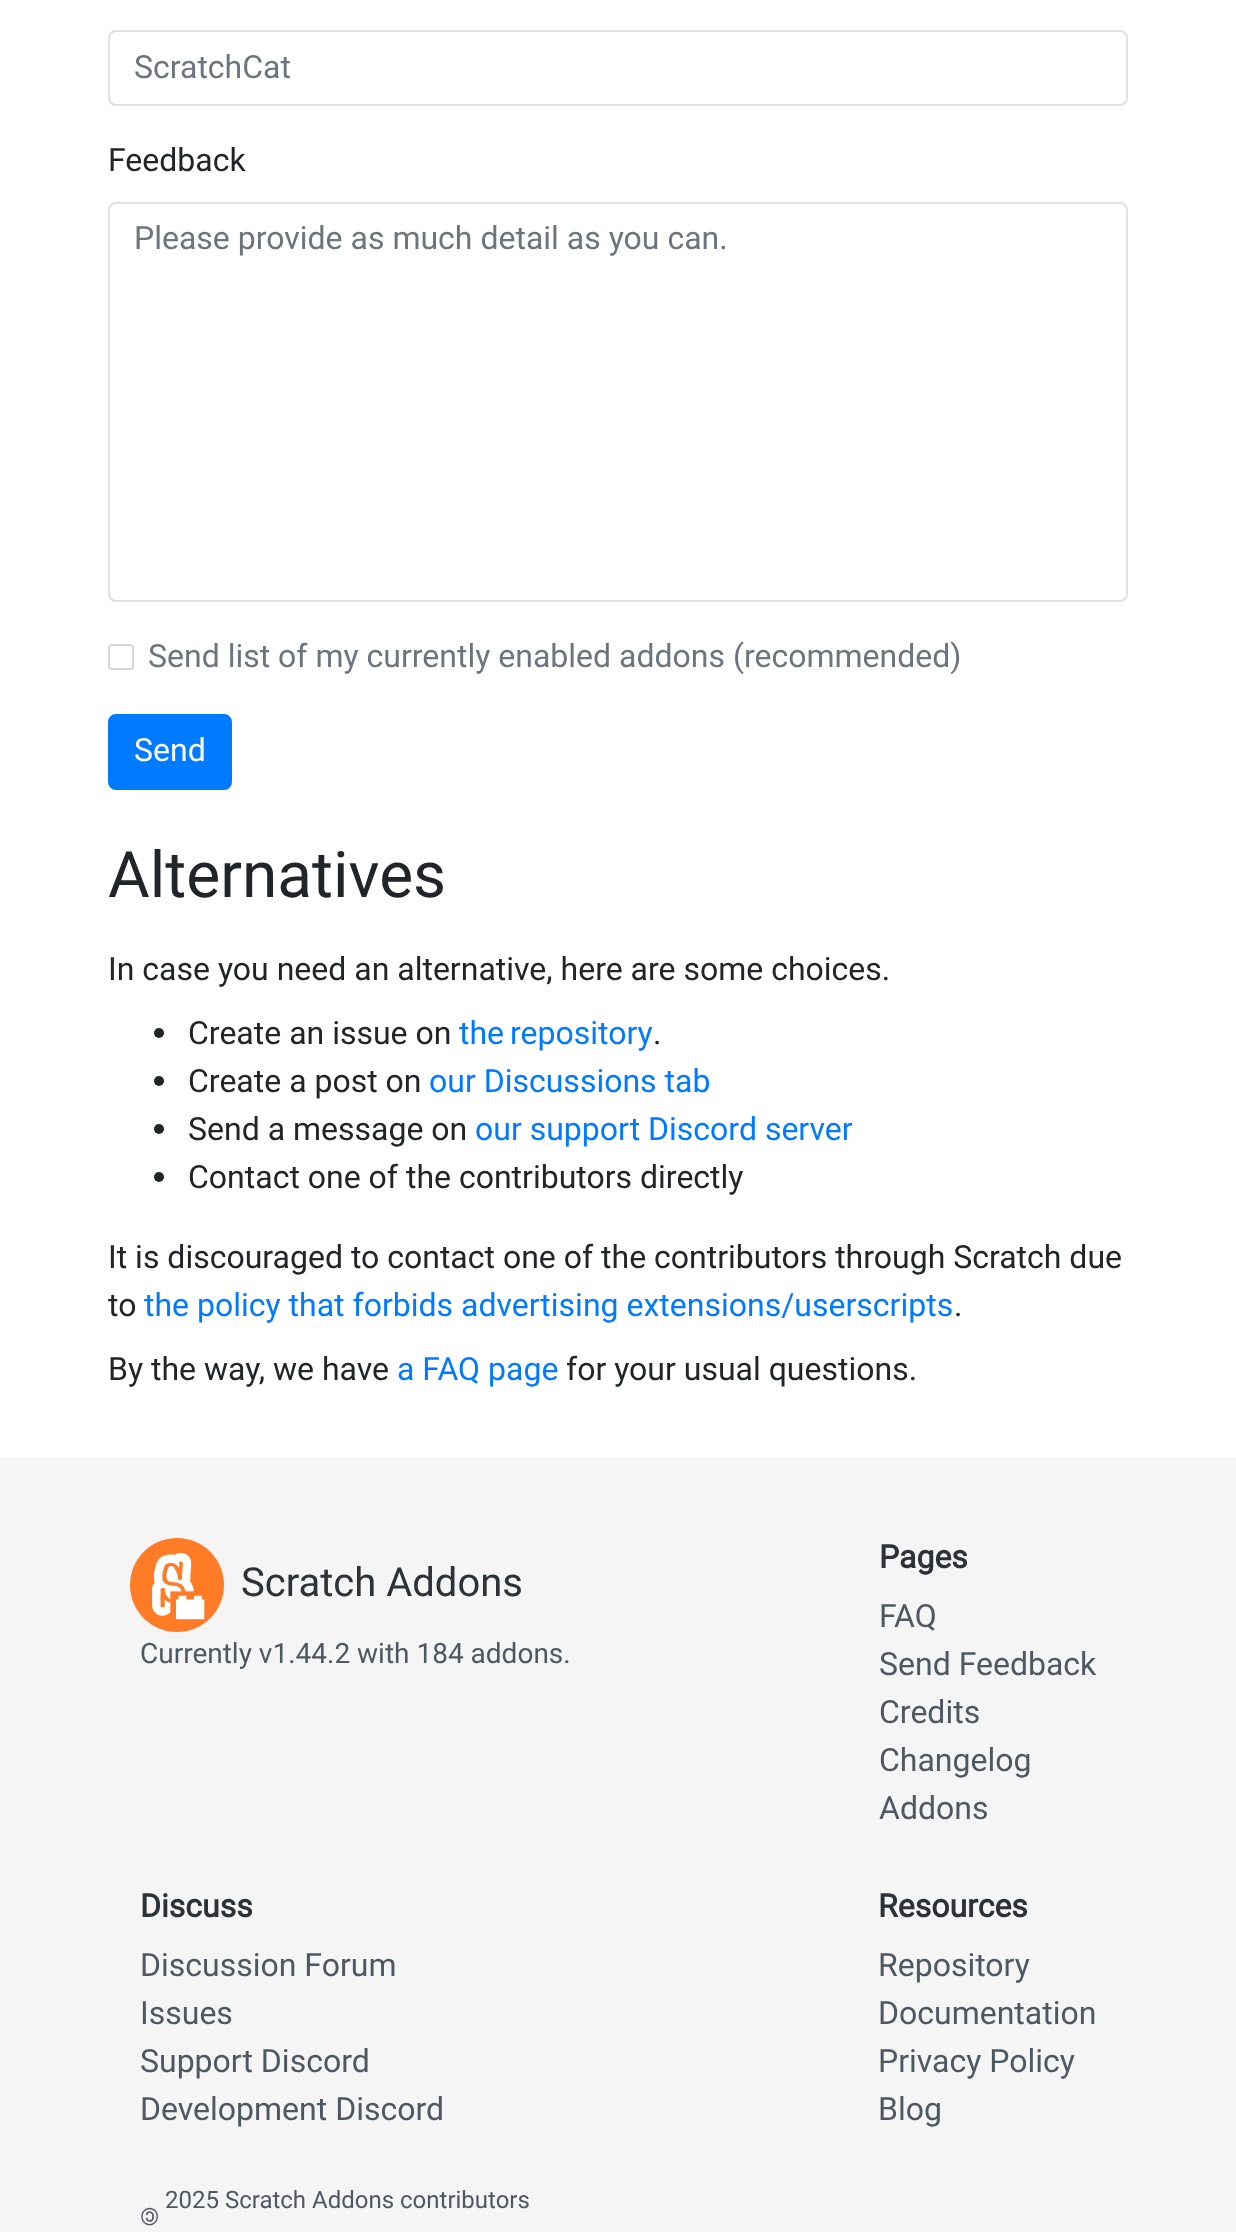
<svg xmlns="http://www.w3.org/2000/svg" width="1236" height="2232">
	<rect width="100%" height="100%" fill="#FFFFFF" />
	<rect x="109" y="31" width="1018" height="74" rx="7" fill="none" stroke="#DEE2E6" stroke-width="2" />
	<text x="134" y="78" font-family="Roboto" font-size="32" fill="#6C757D">ScratchCat</text>
	<text x="108" y="171" font-family="Roboto" font-size="32" fill="#212529">Feedback</text>
	<rect x="109" y="203" width="1018" height="398" rx="7" fill="none" stroke="#DEE2E6" stroke-width="2" />
	<text x="134" y="249" font-family="Roboto" font-size="32" fill="#6C757D">Please provide as much detail as you can.</text>
	<rect x="109" y="645" width="24" height="24" rx="3" fill="none" stroke="#D6D6D6" stroke-width="2" />
	<text x="148" y="667" font-family="Roboto" font-size="32" fill="#6C757D">Send list of my currently enabled addons (recommended)</text>
	<rect x="109" y="715" width="122" height="74" rx="7" fill="#007BFF" stroke="#007BFF" stroke-width="2" />
	<text x="134" y="761" font-family="Roboto" font-size="32" fill="#FFFFFF">Send</text>
	<text x="108" y="897" font-family="Roboto" font-size="64" fill="#212529">Alternatives</text>
	<text x="108" y="980" font-family="Roboto" font-size="32" fill="#212529">In case you need an alternative, here are some choices.</text>
	<circle cx="159" cy="1033" r="5" fill="#212529" />
	<text x="188" y="1044" font-family="Roboto" font-size="32" fill="#212529">Create an issue on</text>
	<text x="459" y="1044" word-spacing="-2" font-family="Roboto" font-size="32" fill="#007BFF">the repository</text>
	<text x="653" y="1044" font-family="Roboto" font-size="32" fill="#212529">.</text>
	<circle cx="159" cy="1081" r="5" fill="#212529" />
	<text x="188" y="1092" font-family="Roboto" font-size="32" fill="#212529">Create a post on</text>
	<text x="429" y="1092" font-family="Roboto" font-size="32" fill="#007BFF">our Discussions tab</text>
	<circle cx="159" cy="1129" r="5" fill="#212529" />
	<text x="188" y="1140" font-family="Roboto" font-size="32" fill="#212529">Send a message on</text>
	<text x="475" y="1140" font-family="Roboto" font-size="32" fill="#007BFF">our support Discord server</text>
	<circle cx="159" cy="1177" r="5" fill="#212529" />
	<g font-family="Roboto" font-size="32" fill="#212529">
		<text x="188" y="1188">Contact one of the contributors directly</text>
		<text x="108" y="1268">It is discouraged to contact one of the contributors through Scratch due</text>
		<text x="108" y="1316">to</text>
	</g>
	<text x="144" y="1316" font-family="Roboto" font-size="32" fill="#007BFF">the policy that forbids advertising extensions/userscripts</text>
	<g font-family="Roboto" font-size="32" fill="#212529">
		<text x="954" y="1316">.</text>
		<text x="108" y="1380">By the way, we have</text>
	</g>
	<text x="397" y="1380" font-family="Roboto" font-size="32" fill="#007BFF">a FAQ page</text>
	<text x="566" y="1380" font-family="Roboto" font-size="32" fill="#212529">for your usual questions.</text>
	<rect x="0" y="1458" width="1236" height="774" fill="#F5F5F5" />
	<circle cx="177" cy="1585" r="47" fill="#FF7B26" />
	<image x="151" y="1553" width="54" height="67" href="assets/img1.png" />
	<text x="241" y="1596" font-family="Roboto" font-size="40" fill="#2C3237">Scratch Addons</text>
	<text x="140" y="1663" font-family="Roboto" font-size="28" fill="#4E5862">Currently v1.44.2 with 184 addons.</text>
	<text x="879" y="1568" font-family="Roboto" font-size="32" font-weight="700" fill="#2C3237">Pages</text>
	<g font-family="Roboto" font-size="32" fill="#4E5862">
		<text x="879" y="1627">FAQ</text>
		<text x="879" y="1675">Send Feedback</text>
		<text x="879" y="1723">Credits</text>
		<text x="879" y="1771">Changelog</text>
		<text x="879" y="1819">Addons</text>
	</g>
	<text x="140" y="1917" font-family="Roboto" font-size="32" font-weight="700" fill="#2C3237">Discuss</text>
	<g font-family="Roboto" font-size="32" fill="#4E5862">
		<text x="140" y="1976">Discussion Forum</text>
		<text x="140" y="2024">Issues</text>
		<text x="140" y="2072">Support Discord</text>
		<text x="140" y="2120">Development Discord</text>
	</g>
	<text x="878" y="1917" font-family="Roboto" font-size="32" font-weight="700" fill="#2C3237">Resources</text>
	<g font-family="Roboto" font-size="32" fill="#4E5862">
		<text x="878" y="1976">Repository</text>
		<text x="878" y="2024">Documentation</text>
		<text x="878" y="2072">Privacy Policy</text>
		<text x="878" y="2120">Blog</text>
	</g>
	<g font-family="Roboto" font-size="24" fill="#4E5862">
		<text x="165" y="2208">2025 Scratch Addons contributors</text>
		<text x="159" y="2208" transform="rotate(180 159 2208)">©</text>
	</g>
</svg>
